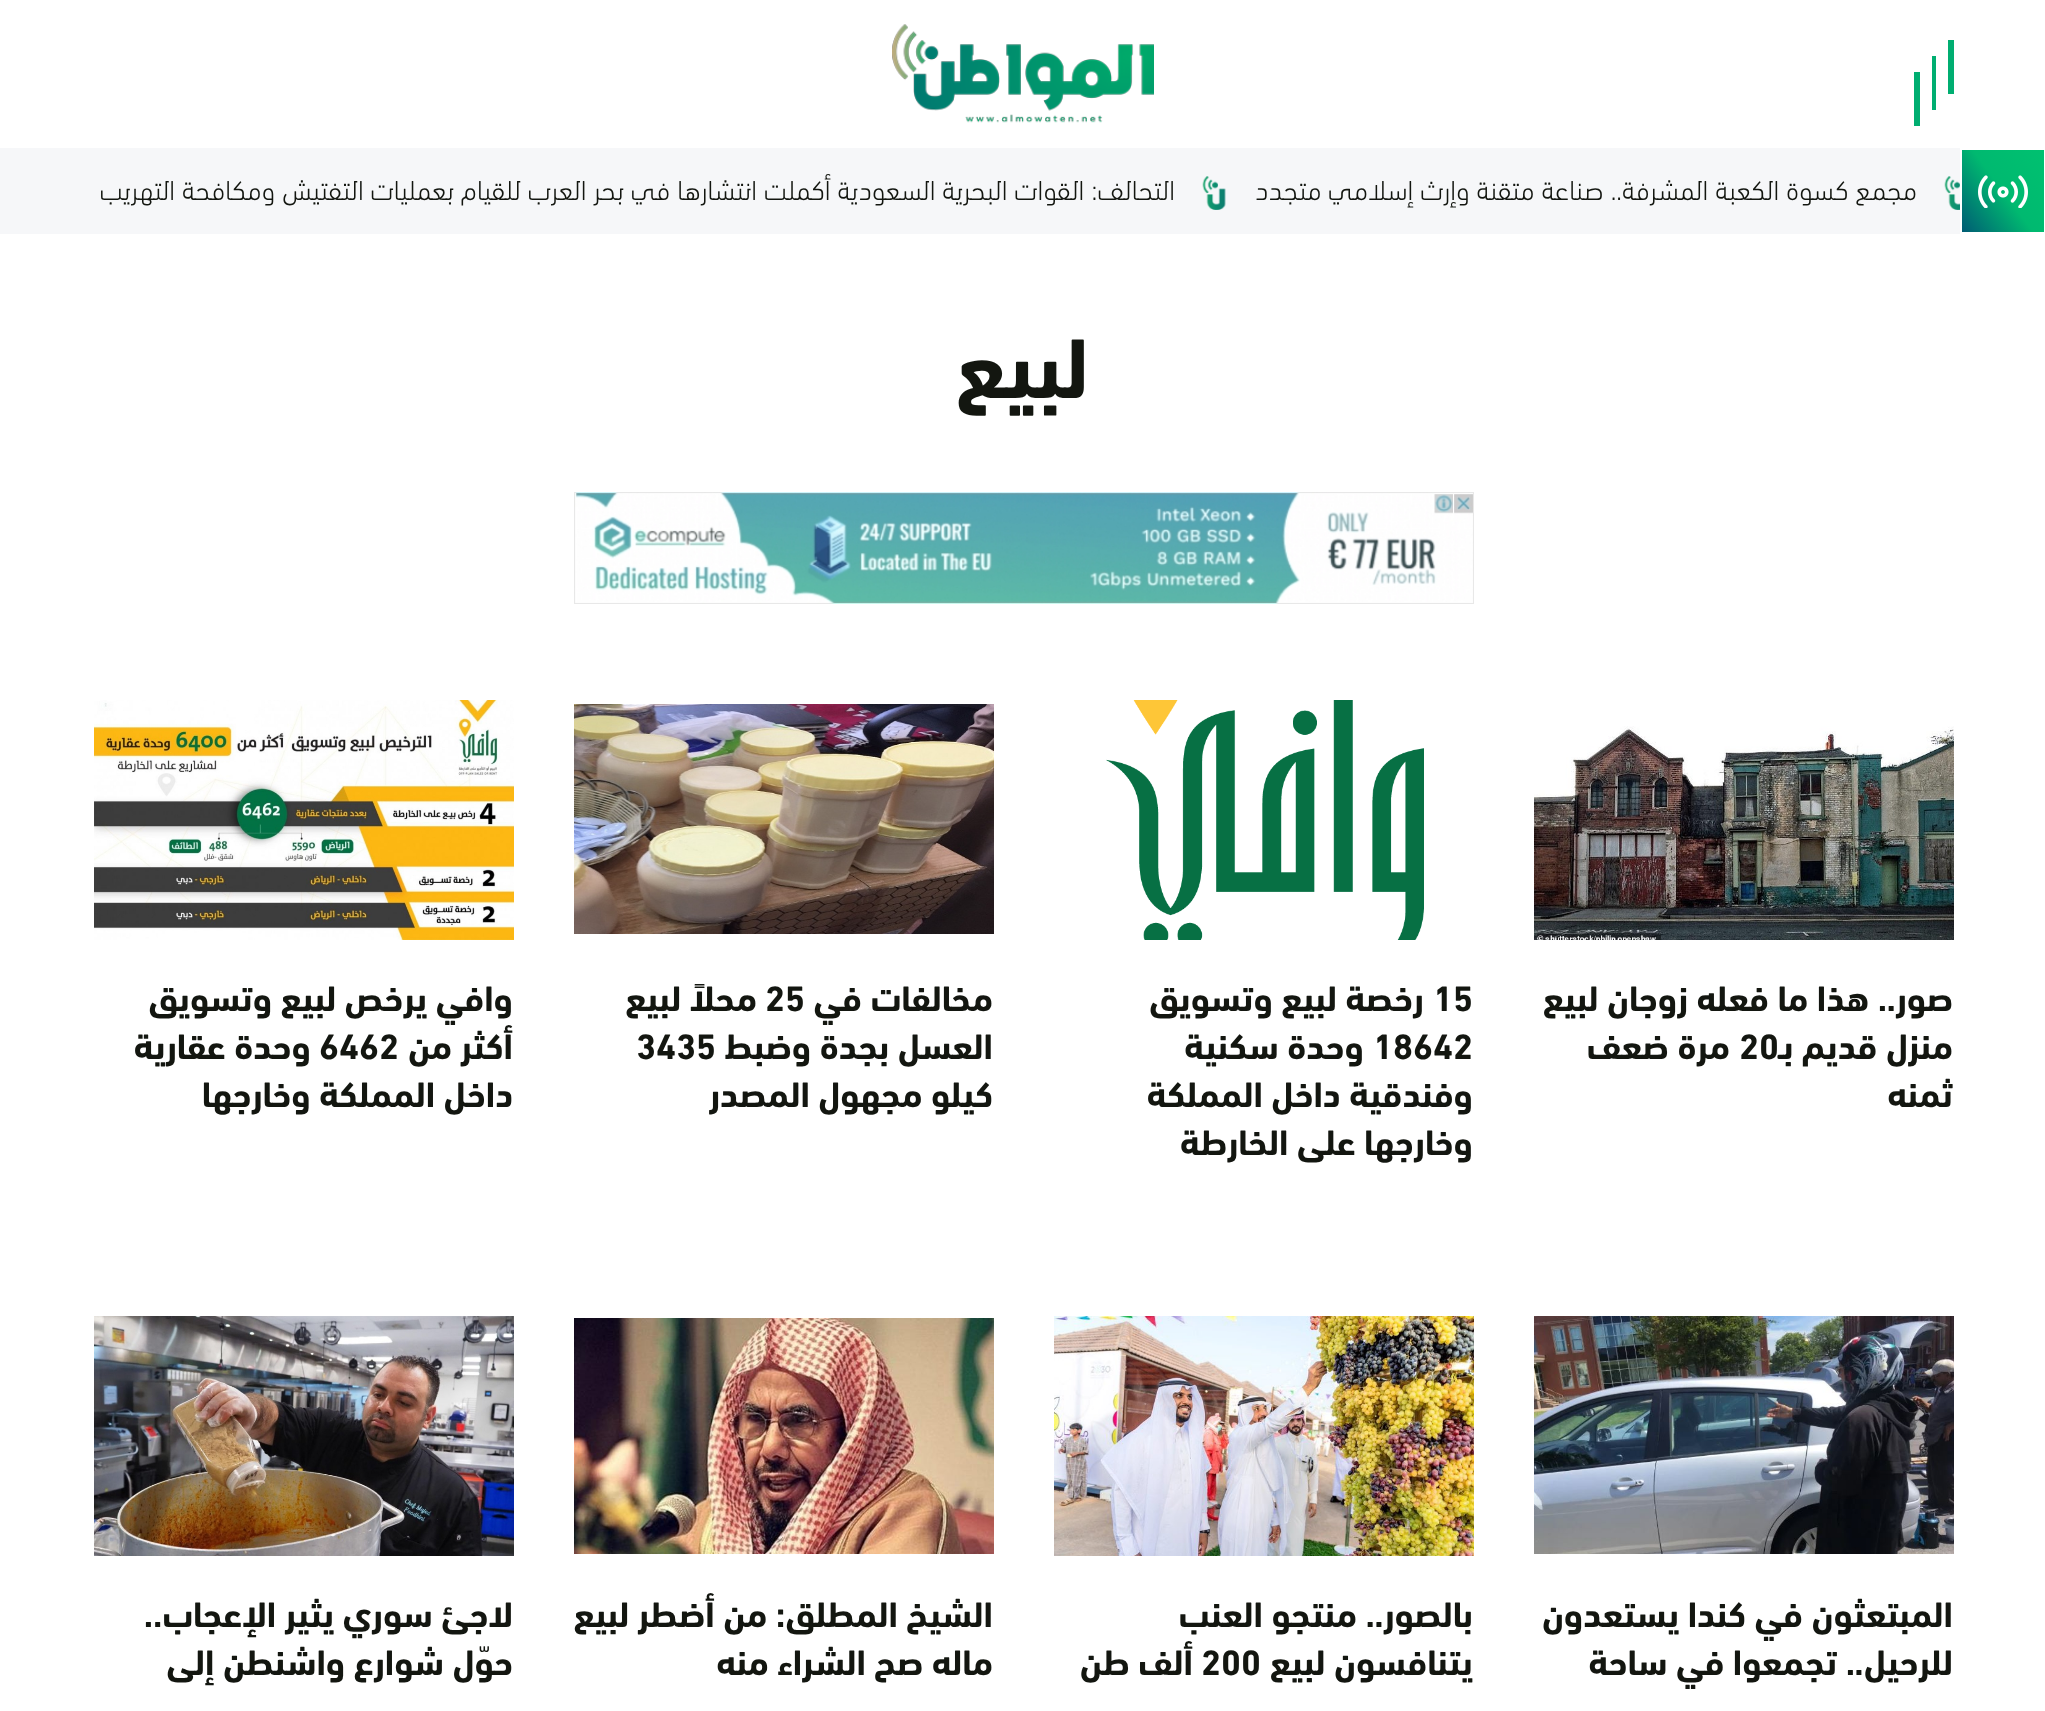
<svg xmlns="http://www.w3.org/2000/svg" width="2045" height="1711">
	<defs>
		<linearGradient id="g1" gradientUnits="userSpaceOnUse" x1="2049" y1="157" x2="1957" y2="225"><stop offset="0" stop-color="#00C170" /><stop offset="0.5" stop-color="#00B970" /><stop offset="1" stop-color="#005C74" /></linearGradient>
	</defs>
	<rect width="100%" height="100%" fill="#FFFFFF" />
	<rect x="1948" y="40" width="6" height="54" fill="#00AE71" />
	<rect x="1932" y="56" width="4" height="54" fill="#00AE71" />
	<rect x="1914" y="72" width="6" height="54" fill="#00AE71" />
	<image x="892" y="24" width="262" height="99" href="assets/img1.png" />
	<rect x="1962" y="150" width="82" height="82" fill="url(#g1)" />
	<image x="1978" y="175" width="50" height="33" href="assets/img2.png" />
	<rect x="0" y="148" width="1960" height="86" fill="#F6F7F9" />
	<image x="1944" y="176" width="16" height="34" href="assets/img3.png" />
	<text x="1917" y="200" font-family="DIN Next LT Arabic" font-size="28" font-weight="300" direction="rtl" fill="#131610">مجمع كسوة الكعبة المشرفة.. صناعة متقنة وإرث إسلامي متجدد</text>
	<image x="1202" y="176" width="24" height="34" href="assets/img4.png" />
	<text x="1175" y="200" font-family="DIN Next LT Arabic" font-size="28" font-weight="300" direction="rtl" fill="#131610">التحالف: القوات البحرية السعودية أكملت انتشارها في بحر العرب للقيام بعمليات التفتيش ومكافحة التهريب</text>
	<text x="1089" y="398" font-family="DIN Next LT Arabic" font-size="86" font-weight="700" direction="rtl" fill="#131610">لبيع</text>
	<image x="574" y="492" width="900" height="112" href="assets/img5.png" />
	<image x="1534" y="726" width="420" height="214" href="assets/img6.png" />
	<g font-family="DIN Next LT Arabic" font-size="36" font-weight="700" direction="rtl" fill="#131610">
		<text x="1953" y="1011">صور.. هذا ما فعله زوجان لبيع</text>
		<text x="1953" y="1059">منزل قديم بـ</text>
	</g>
	<text x="1739" y="1059" font-family="DIN Next LT Arabic" font-size="36" font-weight="700" fill="#131610">20</text>
	<g font-family="DIN Next LT Arabic" font-size="36" font-weight="700" direction="rtl" fill="#131610">
		<text x="1730" y="1059">مرة ضعف</text>
		<text x="1953" y="1107">ثمنه</text>
	</g>
	<image x="1106" y="700" width="318" height="240" href="assets/img7.png" />
	<text x="1433" y="1011" font-family="DIN Next LT Arabic" font-size="36" font-weight="700" fill="#131610">15</text>
	<text x="1424" y="1011" font-family="DIN Next LT Arabic" font-size="36" font-weight="700" direction="rtl" fill="#131610">رخصة لبيع وتسويق</text>
	<text x="1373" y="1059" font-family="DIN Next LT Arabic" font-size="36" font-weight="700" fill="#131610">18642</text>
	<g font-family="DIN Next LT Arabic" font-size="36" font-weight="700" direction="rtl" fill="#131610">
		<text x="1364" y="1059">وحدة سكنية</text>
		<text x="1473" y="1107">وفندقية داخل المملكة</text>
		<text x="1473" y="1155">وخارجها على الخارطة</text>
	</g>
	<image x="574" y="704" width="420" height="230" href="assets/img8.png" />
	<text x="993" y="1011" font-family="DIN Next LT Arabic" font-size="36" font-weight="700" direction="rtl" fill="#131610">مخالفات في</text>
	<text x="765" y="1011" font-family="DIN Next LT Arabic" font-size="36" font-weight="700" fill="#131610">25</text>
	<g font-family="DIN Next LT Arabic" font-size="36" font-weight="700" direction="rtl" fill="#131610">
		<text x="757" y="1011">محلاً لبيع</text>
		<text x="993" y="1059">العسل بجدة وضبط</text>
	</g>
	<text x="636" y="1059" font-family="DIN Next LT Arabic" font-size="36" font-weight="700" fill="#131610">3435</text>
	<text x="993" y="1107" font-family="DIN Next LT Arabic" font-size="36" font-weight="700" direction="rtl" fill="#131610">كيلو مجهول المصدر</text>
	<image x="94" y="700" width="420" height="240" href="assets/img9.png" />
	<g font-family="DIN Next LT Arabic" font-size="36" font-weight="700" direction="rtl" fill="#131610">
		<text x="513" y="1011">وافي يرخص لبيع وتسويق</text>
		<text x="513" y="1059">أكثر من</text>
	</g>
	<text x="319" y="1059" font-family="DIN Next LT Arabic" font-size="36" font-weight="700" fill="#131610">6462</text>
	<g font-family="DIN Next LT Arabic" font-size="36" font-weight="700" direction="rtl" fill="#131610">
		<text x="311" y="1059">وحدة عقارية</text>
		<text x="513" y="1107">داخل المملكة وخارجها</text>
	</g>
	<image x="1534" y="1316" width="420" height="238" href="assets/img10.png" />
	<g font-family="DIN Next LT Arabic" font-size="36" font-weight="700" direction="rtl" fill="#131610">
		<text x="1953" y="1627">المبتعثون في كندا يستعدون</text>
		<text x="1953" y="1675">للرحيل.. تجمعوا في ساحة</text>
	</g>
	<image x="1054" y="1316" width="420" height="240" href="assets/img11.png" />
	<g font-family="DIN Next LT Arabic" font-size="36" font-weight="700" direction="rtl" fill="#131610">
		<text x="1473" y="1627">بالصور.. منتجو العنب</text>
		<text x="1473" y="1675">يتنافسون لبيع</text>
	</g>
	<text x="1201" y="1675" font-family="DIN Next LT Arabic" font-size="36" font-weight="700" fill="#131610">200</text>
	<text x="1193" y="1675" font-family="DIN Next LT Arabic" font-size="36" font-weight="700" direction="rtl" fill="#131610">ألف طن</text>
	<image x="574" y="1318" width="420" height="236" href="assets/img12.png" />
	<g font-family="DIN Next LT Arabic" font-size="36" font-weight="700" direction="rtl" fill="#131610">
		<text x="993" y="1627">الشيخ المطلق: من أضطر لبيع</text>
		<text x="993" y="1675">ماله صح الشراء منه</text>
	</g>
	<image x="94" y="1316" width="420" height="240" href="assets/img13.png" />
	<g font-family="DIN Next LT Arabic" font-size="36" font-weight="700" direction="rtl" fill="#131610">
		<text x="513" y="1627">لاجئ سوري يثير الإعجاب..</text>
		<text x="513" y="1675">حوّل شوارع واشنطن إلى</text>
	</g>
</svg>
